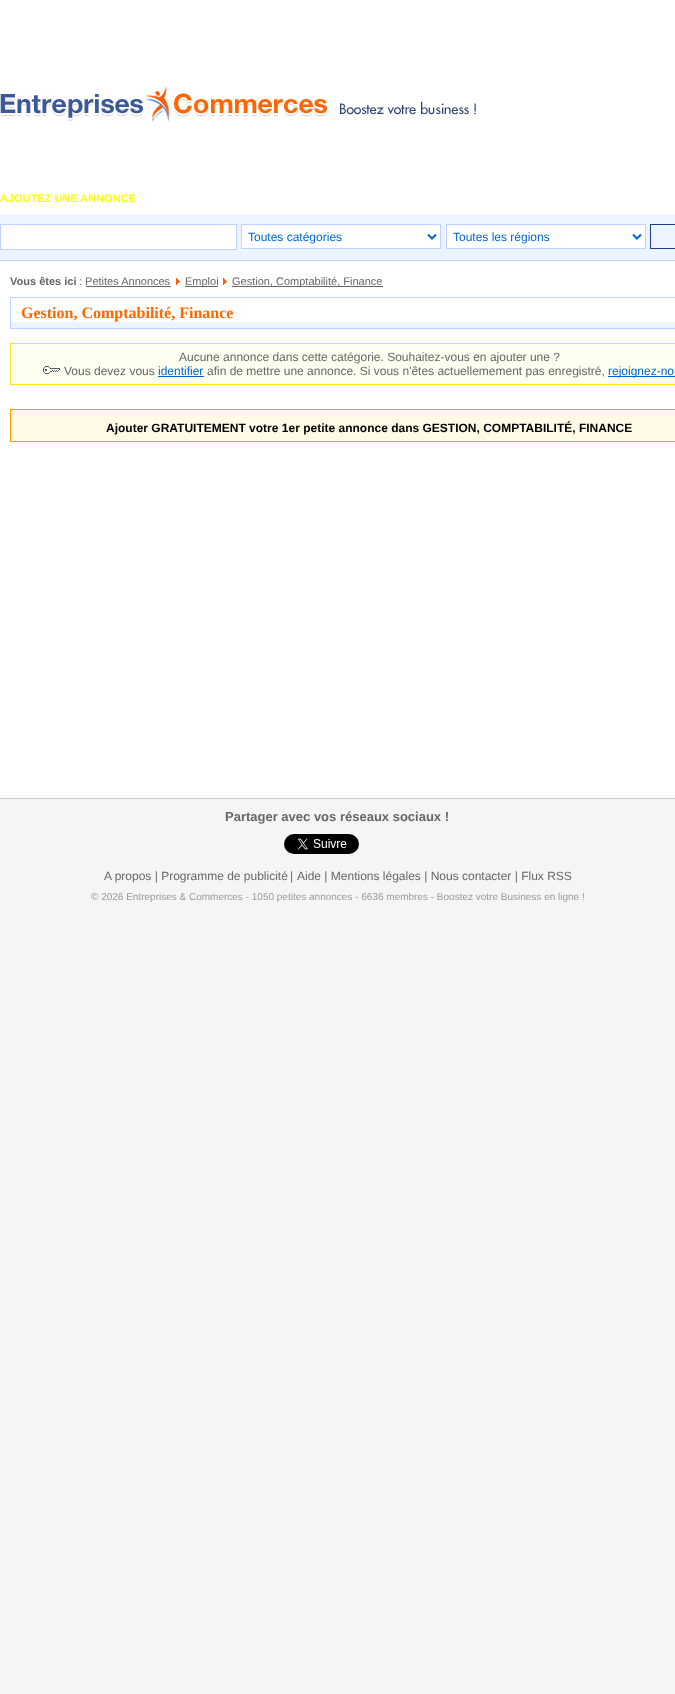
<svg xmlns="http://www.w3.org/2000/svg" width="675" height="1694">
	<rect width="100%" height="100%" fill="#FFFFFF" />
	<rect x="0" y="799" width="675" height="895" fill="#F6F5F5" />
	<image x="0" y="86" width="327" height="36" href="assets/img1.png" />
	<image x="340" y="101" width="136" height="14" href="assets/img2.png" />
	<text x="0" y="202" font-family="Liberation Sans" font-size="11" font-weight="700" fill="#FFFF00">AJOUTEZ UNE ANNONCE</text>
	<rect x="0" y="215" width="675" height="45" fill="#ECF4FF" />
	<rect x="0.5" y="224.5" width="236" height="25" fill="#FFFFFF" stroke="#C0D3FF" />
	<rect x="241.5" y="224.5" width="199" height="24" fill="#FFFFFF" stroke="#C0D3FF" />
	<path d="M428 234.5L432 238.5L436 234.5" fill="none" stroke="#0066CC" stroke-width="2" />
	<text x="248" y="241" font-family="Liberation Sans" font-size="12" fill="#0066CC">Toutes catégories</text>
	<rect x="446.5" y="224.5" width="199" height="24" fill="#FFFFFF" stroke="#C0D3FF" />
	<path d="M633 234.5L637 238.5L641 234.5" fill="none" stroke="#0066CC" stroke-width="2" />
	<text x="453" y="241" font-family="Liberation Sans" font-size="12" fill="#0066CC">Toutes les régions</text>
	<rect x="650.5" y="224.5" width="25" height="24" fill="none" stroke="#1B3F8D" />
	<rect x="0" y="260" width="675" height="1" fill="#C0D3FF" />
	<text x="10" y="285" font-family="Liberation Sans" font-size="11" font-weight="700" fill="#666666">Vous êtes ici</text>
	<text x="79" y="285" font-family="Liberation Sans" font-size="11" fill="#666666">: Petites Annonces</text>
	<image x="176" y="278" width="4" height="7" href="assets/img3.png" />
	<rect x="185" y="286" width="33" height="1" fill="#666666" />
	<text x="185" y="285" font-family="Liberation Sans" font-size="11" fill="#666666">Emploi</text>
	<image x="223" y="278" width="4" height="7" href="assets/img3.png" />
	<rect x="232" y="286" width="151" height="1" fill="#666666" />
	<text x="232" y="285" font-family="Liberation Sans" font-size="11" fill="#666666">Gestion, Comptabilité, Finance</text>
	<rect x="86" y="286" width="85" height="1" fill="#666666" />
	<rect x="10" y="297" width="665" height="1" fill="#C0D3FF" />
	<rect x="10" y="297" width="1" height="25" fill="#C0D3FF" />
	<text x="21" y="318" font-family="Liberation Serif" font-size="16" font-weight="700" fill="#FF6600">Gestion, Comptabilité, Finance</text>
	<rect x="10" y="322" width="665" height="6" fill="#ECF4FF" />
	<rect x="10" y="328" width="665" height="1" fill="#C0D3FF" />
	<rect x="10" y="322" width="1" height="7" fill="#C0D3FF" />
	<rect x="10" y="344" width="665" height="6" fill="#FEFFF1" />
	<rect x="10" y="343" width="665" height="1" fill="#FFE222" />
	<rect x="10" y="343" width="1" height="35" fill="#FFE222" />
	<rect x="11" y="350" width="664" height="28" fill="#FEFFF1" />
	<text x="179" y="361" font-family="Liberation Sans" font-size="12" fill="#666666">Aucune annonce dans cette catégorie. Souhaitez-vous en ajouter une ?</text>
	<image x="43" y="366" width="17" height="8" href="assets/img4.png" />
	<text x="64" y="375" font-family="Liberation Sans" font-size="12" fill="#666666">Vous devez vous</text>
	<text x="158" y="375" font-family="Liberation Sans" font-size="12" fill="#0066CC">identifier</text>
	<rect x="158" y="376" width="46" height="1" fill="#0066CC" />
	<text x="207" y="375" font-family="Liberation Sans" font-size="12" fill="#666666">afin de mettre une annonce. Si vous n'êtes actuellemement pas enregistré,</text>
	<rect x="608" y="376" width="67" height="1" fill="#0066CC" />
	<text x="608" y="375" font-family="Liberation Sans" font-size="12" fill="#0066CC">rejoignez-no</text>
	<rect x="10" y="378" width="665" height="6" fill="#FEFFF1" />
	<rect x="10" y="384" width="665" height="1" fill="#FFE222" />
	<rect x="10" y="378" width="1" height="7" fill="#FFE222" />
	<rect x="10" y="410" width="665" height="6" fill="#FFFAE6" />
	<rect x="10" y="409" width="665" height="1" fill="#FF9900" />
	<rect x="10" y="409" width="1" height="26" fill="#FF9900" />
	<rect x="11" y="416" width="664" height="19" fill="#FFFAE6" />
	<text x="106" y="432" font-family="Liberation Sans" font-size="12" font-weight="700" fill="#000000">Ajouter GRATUITEMENT votre 1er petite annonce dans GESTION, COMPTABILITÉ, FINANCE</text>
	<rect x="10" y="435" width="665" height="6" fill="#FFFAE6" />
	<rect x="10" y="441" width="665" height="1" fill="#FF9900" />
	<rect x="10" y="435" width="1" height="7" fill="#FF9900" />
	<rect x="0" y="798" width="675" height="1" fill="#CCCCCC" />
	<text x="225" y="821" font-family="Liberation Sans" font-size="13" font-weight="700" fill="#666666">Partager avec vos réseaux sociaux !</text>
	<image x="284" y="834" width="75" height="20" href="assets/img5.png" />
	<g font-family="Liberation Sans" font-size="12" fill="#666666">
		<text x="104" y="880">A propos | Programme de publicité</text>
		<text x="290" y="880">|</text>
		<text x="297" y="880">Aide | Mentions légales | Nous contacter | Flux RSS</text>
	</g>
	<text x="91" y="900" font-family="Liberation Sans" font-size="10" fill="#999999">© 2026 Entreprises &amp; Commerces - 1050 petites annonces - 6636 membres - Boostez votre Business en ligne !</text>
</svg>
